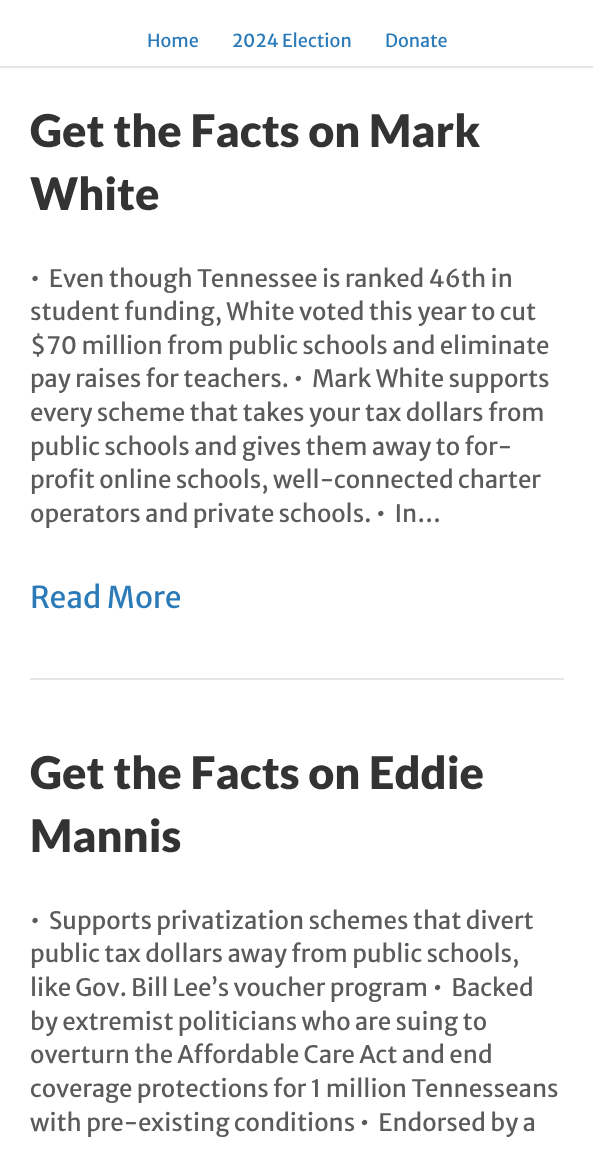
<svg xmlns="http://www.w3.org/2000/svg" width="593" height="1154">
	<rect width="100%" height="100%" fill="#FFFFFF" />
	<rect x="0" y="66" width="593" height="2" fill="#E6E6E6" />
	<g font-family="Merriweather Sans" font-size="18" fill="#2B7BB9">
		<text x="147" y="47">Home</text>
		<text x="232" y="47">2024 Election</text>
		<text x="385" y="47">Donate</text>
	</g>
	<rect x="30" y="678" width="534" height="2" fill="#E6E6E6" />
	<g font-family="Lato" font-size="45" font-weight="900" fill="#333333">
		<text x="30" y="147">Get the Facts on Mark</text>
		<text x="30" y="210">White</text>
	</g>
	<g font-family="Merriweather Sans" font-size="24" fill="#5B5B5B">
		<text x="30" y="287" xml:space="preserve">•  Even though Tennessee is ranked 46th in</text>
		<text x="30" y="320">student funding, White voted this year to cut</text>
		<text x="30" y="354">$70 million from public schools and eliminate</text>
		<text x="30" y="387" xml:space="preserve">pay raises for teachers. •  Mark White supports</text>
		<text x="30" y="421">every scheme that takes your tax dollars from</text>
		<text x="30" y="455">public schools and gives them away to for-</text>
		<text x="30" y="488">profit online schools, well-connected charter</text>
		<text x="30" y="522" xml:space="preserve">operators and private schools. •  In…</text>
	</g>
	<text x="30" y="608" font-family="Merriweather Sans" font-size="30" fill="#2B7BB9">Read More</text>
	<g font-family="Lato" font-size="45" font-weight="900" fill="#333333">
		<text x="30" y="789">Get the Facts on Eddie</text>
		<text x="30" y="852">Mannis</text>
	</g>
	<g font-family="Merriweather Sans" font-size="24" fill="#5B5B5B">
		<text x="30" y="929" xml:space="preserve">•  Supports privatization schemes that divert</text>
		<text x="30" y="962">public tax dollars away from public schools,</text>
		<text x="30" y="996" xml:space="preserve">like Gov. Bill Lee’s voucher program •  Backed</text>
		<text x="30" y="1030">by extremist politicians who are suing to</text>
		<text x="30" y="1063">overturn the Affordable Care Act and end</text>
		<text x="30" y="1097">coverage protections for 1 million Tennesseans</text>
		<text x="30" y="1131" xml:space="preserve">with pre-existing conditions •  Endorsed by a</text>
	</g>
</svg>
